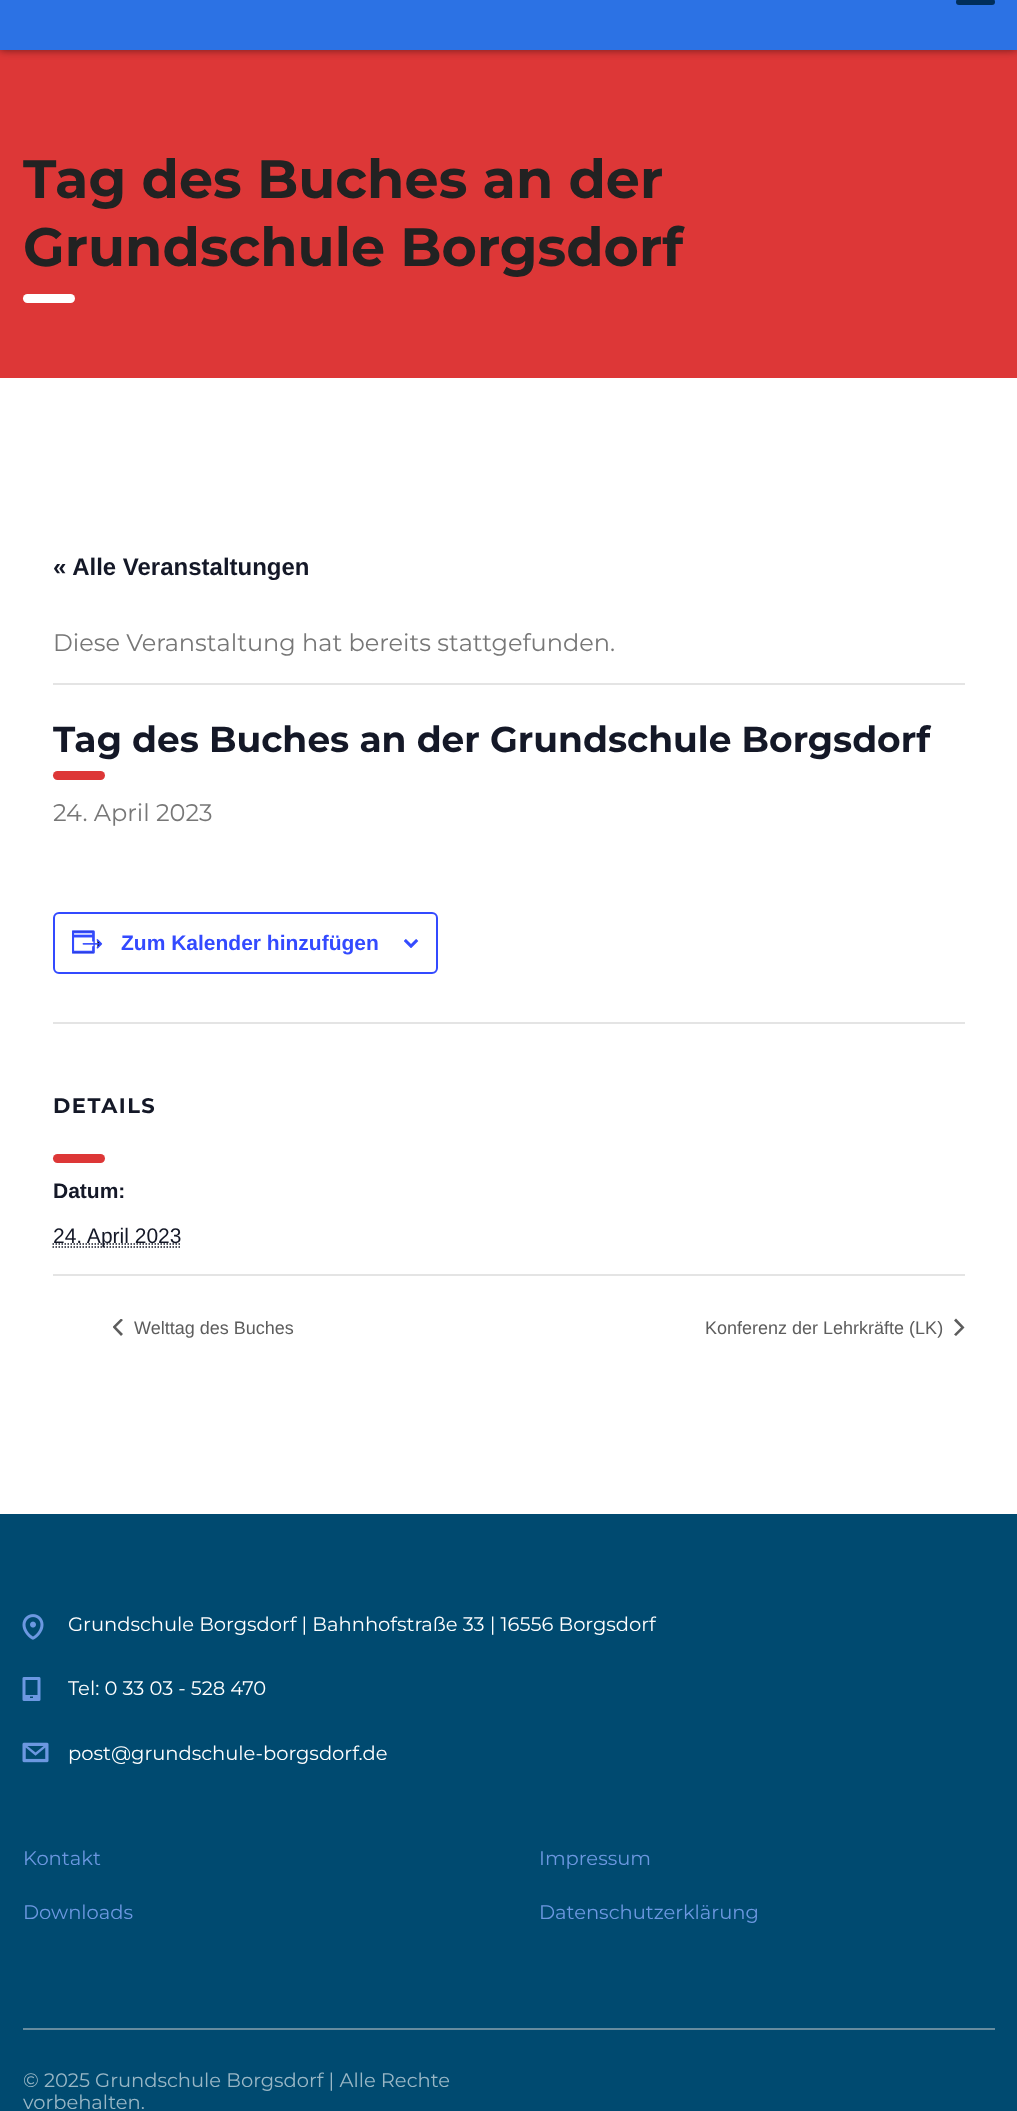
<svg xmlns="http://www.w3.org/2000/svg" width="1017" height="2111">
	<defs>
		<clipPath id="clip1"><rect x="113" y="1319" width="10" height="18" /></clipPath>
	</defs>
	<rect width="100%" height="100%" fill="#FFFFFF" />
	<rect x="0" y="50" width="1017" height="328" fill="#DD3737" />
	<rect x="0" y="-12" width="1017" height="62" fill="#000000" fill-opacity="0.52" filter="blur(4px)" />
	<rect x="0" y="0" width="1017" height="50" fill="#2C72E4" />
	<rect x="956" y="-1" width="39" height="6" rx="3" fill="#002E5B" />
	<g font-family="'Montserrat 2'" font-size="54" font-weight="100" fill="#222222">
		<text x="23" y="198">Tag des Buches an der</text>
		<text x="23" y="266">Grundschule Borgsdorf</text>
	</g>
	<rect x="23" y="294" width="52" height="9" rx="4.5" fill="#FFFFFF" />
	<text x="53" y="575" font-family="Liberation Sans" font-size="24" font-weight="700" fill="#141827">« Alle Veranstaltungen</text>
	<rect x="53" y="683" width="912" height="2" fill="#E4E4E4" />
	<text x="53" y="651" font-family="Montserrat" font-size="24" font-weight="100" fill="#777777">Diese Veranstaltung hat bereits stattgefunden.</text>
	<text x="53" y="752" font-family="'Montserrat 2'" font-size="36" font-weight="100" fill="#141827">Tag des Buches an der Grundschule Borgsdorf</text>
	<rect x="53" y="771" width="52" height="9" rx="4.5" fill="#DD3737" />
	<text x="53" y="821" font-family="Montserrat" font-size="24" font-weight="100" fill="#777777">24. April 2023</text>
	<rect x="54" y="913" width="383" height="60" rx="5" fill="none" stroke="#334AFF" stroke-width="2" />
	<image x="72" y="930" width="31" height="24" href="assets/img1.png" />
	<text x="121" y="950" font-family="Liberation Sans" font-size="21" font-weight="700" fill="#334AFF">Zum Kalender hinzufügen</text>
	<image x="404" y="939" width="15" height="9" href="assets/img2.png" />
	<rect x="53" y="1022" width="912" height="2" fill="#E4E4E4" />
	<text x="53" y="1113" font-family="'Montserrat 2'" font-size="21" font-weight="100" letter-spacing="1.5" fill="#141827">DETAILS</text>
	<rect x="53" y="1154" width="52" height="9" rx="4.5" fill="#DD3737" />
	<text x="53" y="1198" font-family="Liberation Sans" font-size="21" font-weight="700" fill="#141827">Datum:</text>
	<path d="M52.5 1247H181.5" fill="none" stroke="#141827" stroke-width="1.5" stroke-dasharray="1.5 1.5" />
	<path d="M52.5 1244H181" fill="none" stroke="#141827" stroke-width="1.5" stroke-dasharray="1.5 1.5" />
	<text x="53" y="1243" font-family="Liberation Sans" font-size="21" fill="#141827">24. April 2023</text>
	<rect x="53" y="1274" width="912" height="2" fill="#E4E4E4" />
	<g clip-path="url(#clip1)">
		<path d="M123 1334L121 1336L112.5 1327L121 1318.5L123 1320L116 1327Z" fill="#5D5D5D" />
	</g>
	<g font-family="Liberation Sans" font-size="18" fill="#5D5D5D">
		<text x="134" y="1334">Welttag des Buches</text>
		<text x="705" y="1334">Konferenz der Lehrkräfte (LK)</text>
	</g>
	<path d="M954 1320.5L956 1318.5L964.5 1327.5L956 1336L954 1334.5L961 1327.5Z" fill="#5D5D5D" />
	<rect x="0" y="1514" width="1017" height="597" fill="#004A70" />
	<image x="22" y="1614" width="22" height="26" href="assets/img3.png" />
	<text x="68" y="1631" font-family="Montserrat" font-size="19.5" font-weight="100" fill="#FFFFFF">Grundschule Borgsdorf | Bahnhofstraße 33 | 16556 Borgsdorf</text>
	<image x="22" y="1677" width="19" height="24" href="assets/img4.png" />
	<text x="68" y="1695" font-family="Montserrat" font-size="19.5" font-weight="100" fill="#FFFFFF">Tel: 0 33 03 - 528 470</text>
	<image x="22" y="1742" width="27" height="21" href="assets/img5.png" />
	<text x="68" y="1760" font-family="Montserrat" font-size="19.5" font-weight="100" fill="#FFFFFF">post@grundschule-borgsdorf.de</text>
	<g font-family="Montserrat" font-size="19.5" font-weight="100" fill="#6C98E1">
		<text x="23" y="1865">Kontakt</text>
		<text x="539" y="1865">Impressum</text>
		<text x="23" y="1919">Downloads</text>
		<text x="539" y="1919">Datenschutzerklärung</text>
	</g>
	<rect x="23" y="2028" width="972" height="2" fill="#668B9E" />
	<g font-family="Montserrat" font-size="19.5" font-weight="100" fill="#99B7C6">
		<text x="23" y="2087">© 2025 Grundschule Borgsdorf | Alle Rechte</text>
		<text x="23" y="2109">vorbehalten.</text>
	</g>
</svg>
